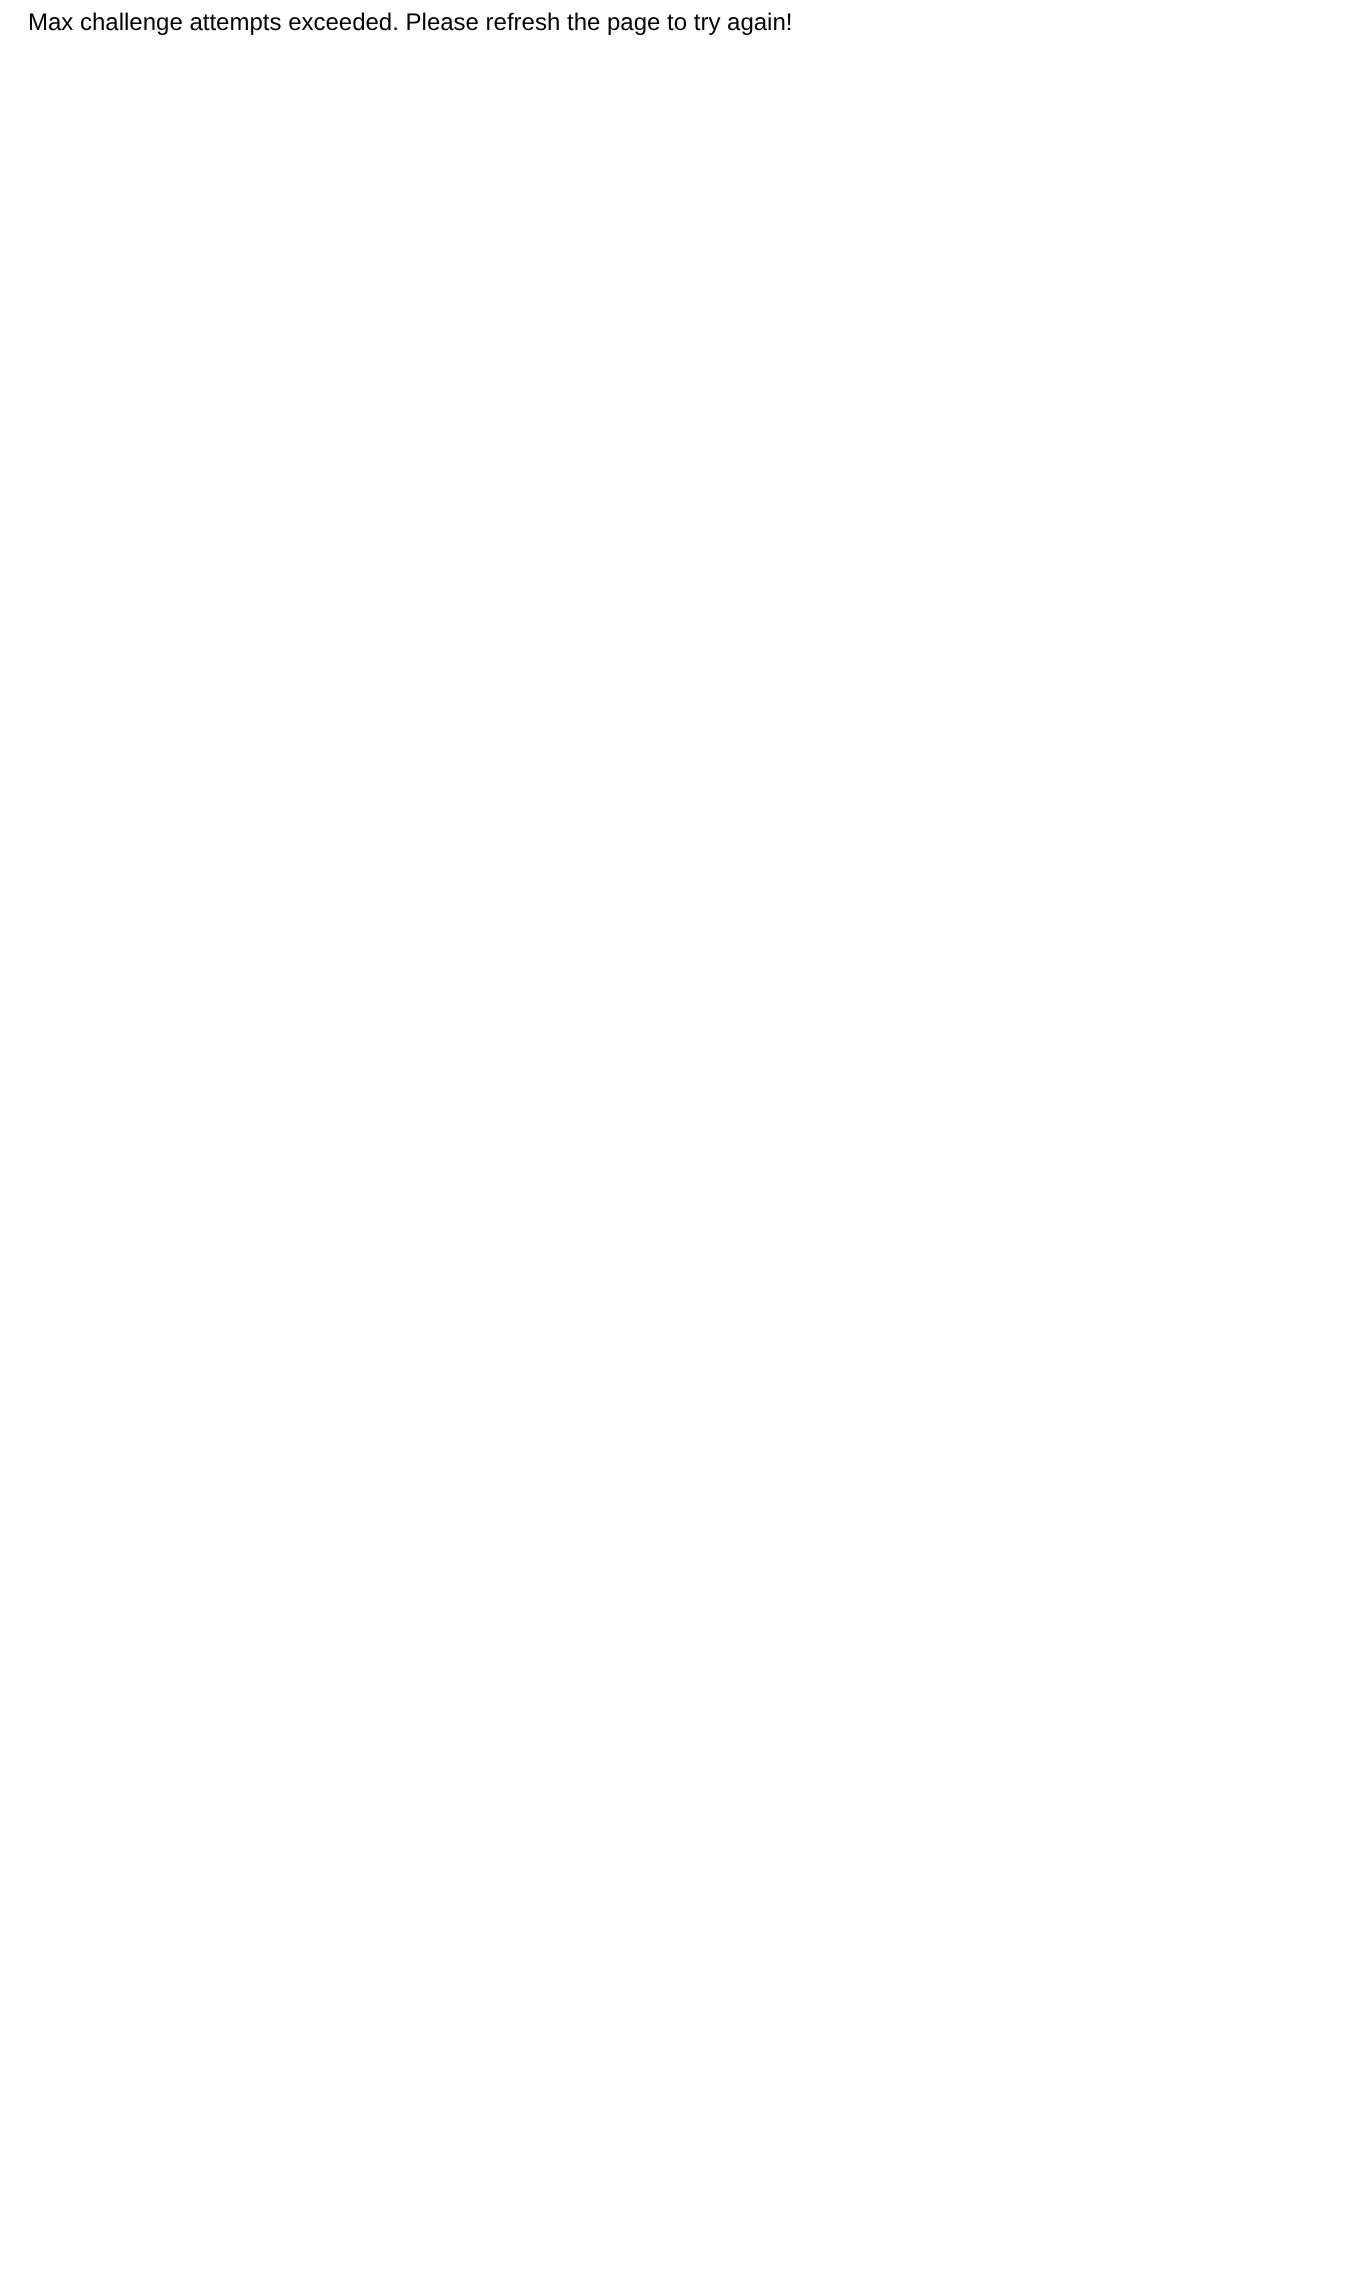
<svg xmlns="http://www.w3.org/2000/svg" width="1354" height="2288">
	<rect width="100%" height="100%" fill="#FFFFFF" />
	<text x="28" y="30" font-family="Liberation Sans" font-size="24" fill="#000000">Max challenge attempts exceeded. Please refresh the page to try again!</text>
</svg>
